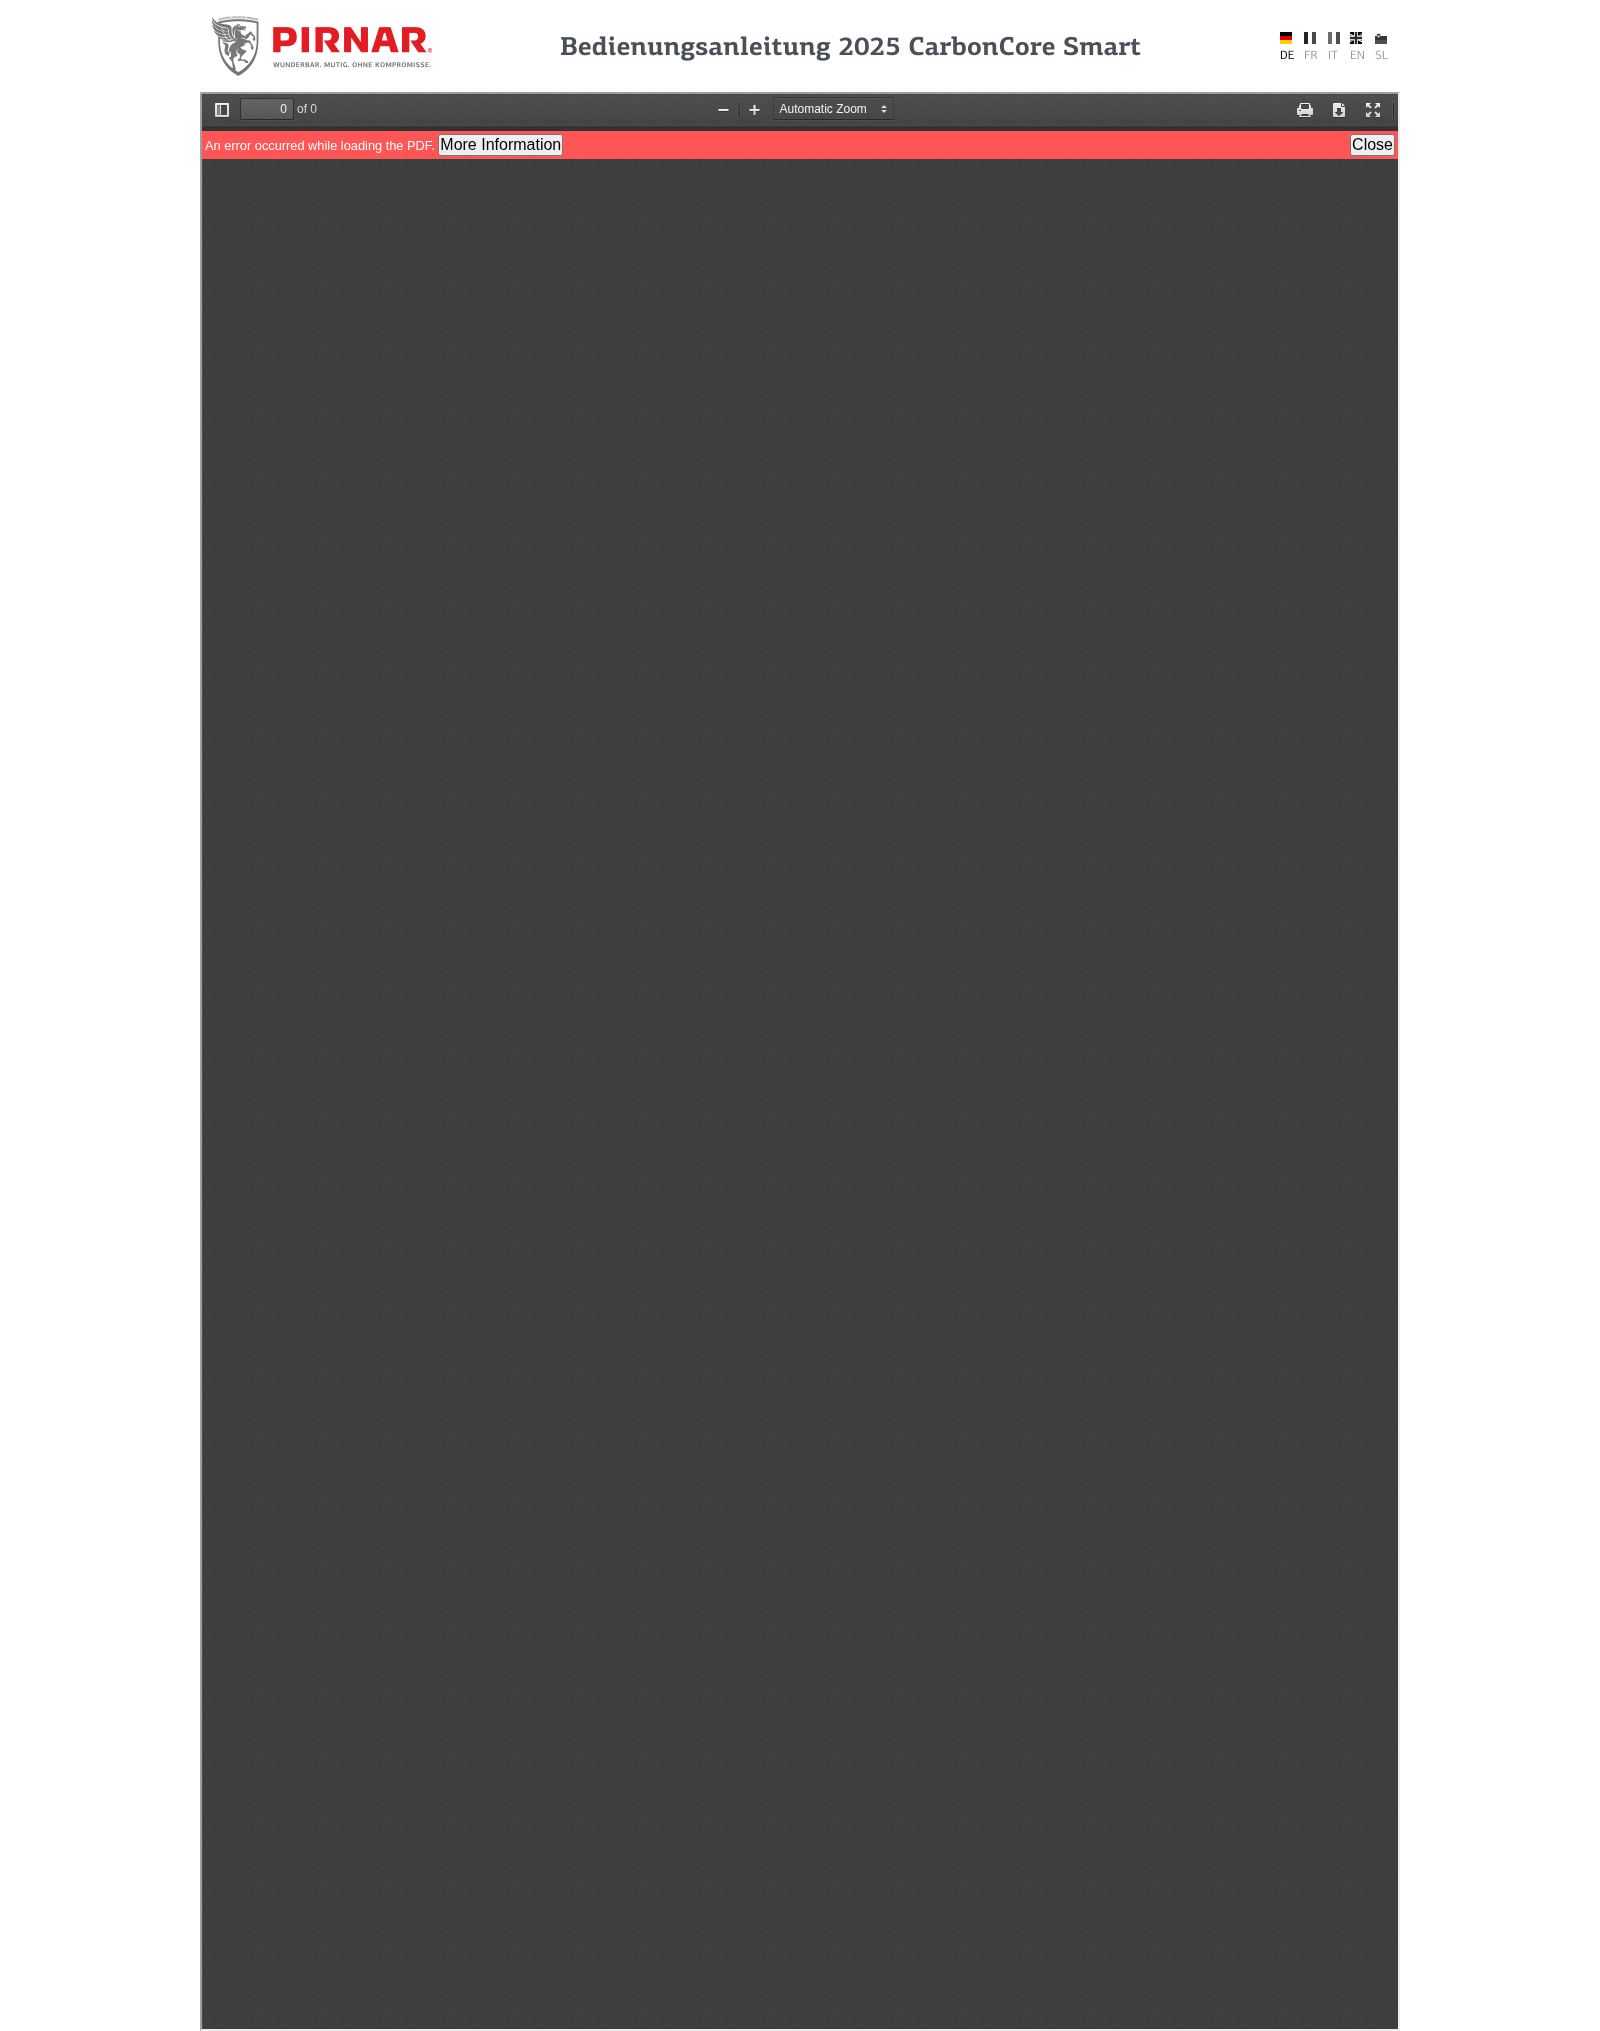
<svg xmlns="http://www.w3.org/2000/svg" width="1600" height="2031">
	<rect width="100%" height="100%" fill="#FFFFFF" />
	<image x="212" y="16" width="220" height="60" href="assets/img1.png" />
	<image x="561" y="36" width="580" height="25" href="assets/img2.png" />
	<rect x="1280" y="40" width="12" height="4" fill="#FFCE00" />
	<rect x="1280" y="32" width="12" height="4" fill="#000000" />
	<rect x="1280" y="36" width="12" height="4" fill="#DD0000" />
	<image x="1280" y="50" width="14" height="9" href="assets/img3.png" />
	<rect x="1304" y="32" width="4" height="12" fill="#242424" />
	<rect x="1312" y="32" width="4" height="12" fill="#484848" />
	<image x="1305" y="50" width="12" height="9" href="assets/img4.png" />
	<rect x="1328" y="32" width="4" height="12" fill="#6D6D6D" />
	<rect x="1336" y="32" width="4" height="12" fill="#4F4F4F" />
	<image x="1329" y="50" width="9" height="9" href="assets/img5.png" />
	<image x="1350" y="32" width="12" height="12" href="assets/img6.png" />
	<image x="1351" y="50" width="13" height="9" href="assets/img7.png" />
	<image x="1375" y="33" width="12" height="11" href="assets/img8.png" />
	<image x="1375" y="50" width="14" height="10" href="assets/img9.png" />
	<path d="M200 92H1400L1398 94H202Z" fill="#9F9F9F" />
	<path d="M1400 92V2031L1398 2029V94Z" fill="#EEEEEE" />
	<path d="M1400 2031H200L202 2029H1398Z" fill="#EEEEEE" />
	<path d="M200 2031V92L202 94V2029Z" fill="#9F9F9F" />
	<image x="202" y="94" width="1196" height="1935" href="assets/img10.png" />
</svg>
